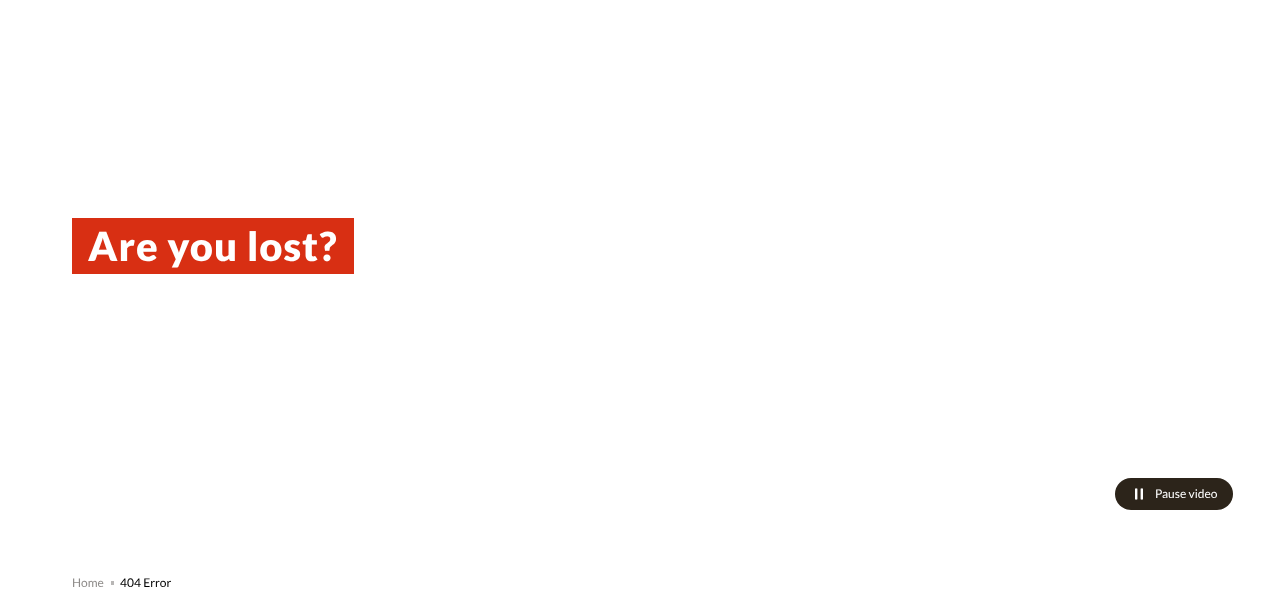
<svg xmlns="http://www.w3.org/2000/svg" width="1265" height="602">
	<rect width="100%" height="100%" fill="#FFFFFF" />
	<rect x="72" y="218" width="282" height="56" fill="#D82F13" />
	<text x="88" y="261" font-family="Lato" font-size="40" font-weight="900" letter-spacing="1" fill="#FFFFFF">Are you lost?</text>
	<rect x="1115" y="478" width="118" height="32" rx="16" fill="#2C241A" />
	<image x="1135" y="488" width="8" height="12" href="assets/img1.png" />
	<text x="1155" y="498" font-family="Lato" font-size="12" fill="#FFFFFF">Pause video</text>
	<text x="72" y="587" font-family="Lato" font-size="12" fill="#8E8B89">Home</text>
	<rect x="111" y="581" width="3" height="4" fill="#B8B6B5" />
	<text x="120" y="587" font-family="Lato" font-size="12" fill="#000000">404 Error</text>
</svg>
